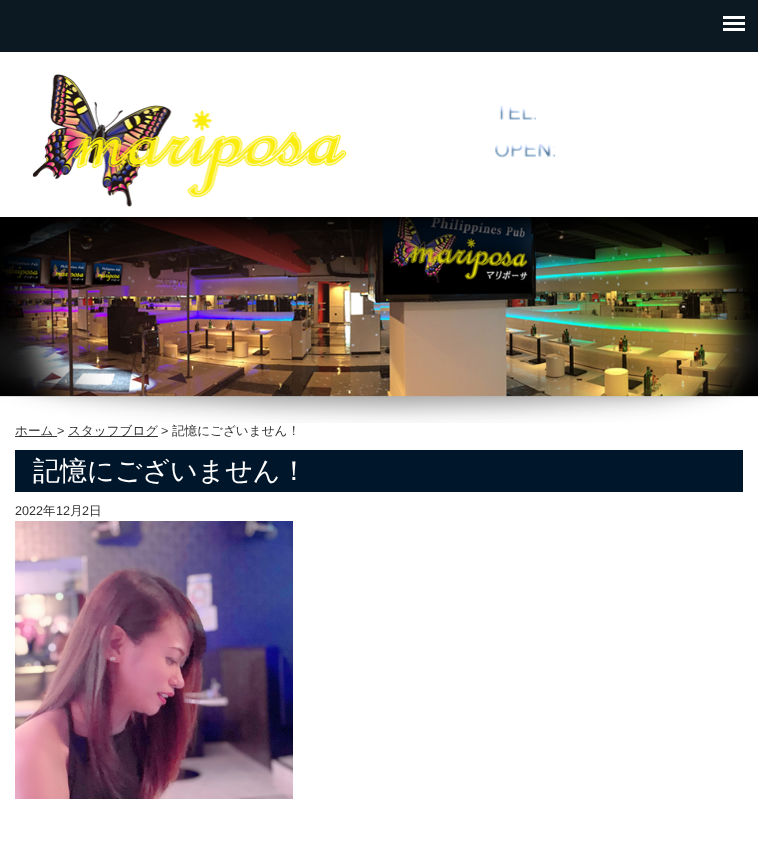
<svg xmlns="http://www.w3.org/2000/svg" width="758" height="868">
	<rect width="100%" height="100%" fill="#FFFFFF" />
	<rect x="0" y="0" width="758" height="52" fill="#0C1923" />
	<rect x="723" y="16" width="22" height="3" fill="#FFFFFF" />
	<rect x="723" y="22" width="22" height="3" fill="#FFFFFF" />
	<rect x="723" y="28" width="22" height="3" fill="#FFFFFF" />
	<image x="32" y="74" width="315" height="133" href="assets/img1.png" />
	<image x="495" y="106" width="61" height="52" href="assets/img2.png" />
	<image x="0" y="217" width="758" height="206" href="assets/img3.png" />
	<rect x="15" y="436" width="42" height="1" fill="#333333" />
	<text x="15" y="435" font-family="WenQuanYi Zen Hei" font-size="12.6" font-weight="500" fill="#333333">ホーム</text>
	<text x="57" y="435" font-family="Liberation Sans" font-size="12.6" fill="#333333">&gt;</text>
	<rect x="68" y="436" width="90" height="1" fill="#333333" />
	<text x="68" y="435" font-family="WenQuanYi Zen Hei" font-size="12.6" font-weight="500" fill="#333333">スタッフブログ</text>
	<text x="161" y="435" font-family="Liberation Sans" font-size="12.6" fill="#333333">&gt;</text>
	<text x="172" y="435" font-family="WenQuanYi Zen Hei" font-size="12.6" font-weight="500" fill="#333333">記憶にございません！</text>
	<rect x="15" y="450" width="728" height="42" fill="#00162B" />
	<text x="33" y="480" font-family="WenQuanYi Zen Hei" font-size="27" font-weight="500" fill="#FFFFFF">記憶にございません！</text>
	<text x="15" y="515" font-family="Liberation Sans" font-size="12.6" fill="#333333">2022</text>
	<text x="43" y="515" font-family="WenQuanYi Zen Hei" font-size="12.6" font-weight="500" fill="#333333">年</text>
	<text x="56" y="515" font-family="Liberation Sans" font-size="12.6" fill="#333333">12</text>
	<text x="70" y="515" font-family="WenQuanYi Zen Hei" font-size="12.6" font-weight="500" fill="#333333">月</text>
	<text x="82" y="515" font-family="Liberation Sans" font-size="12.6" fill="#333333">2</text>
	<text x="89" y="515" font-family="WenQuanYi Zen Hei" font-size="12.6" font-weight="500" fill="#333333">日</text>
	<image x="15" y="521" width="278" height="278" href="assets/img4.png" />
</svg>
